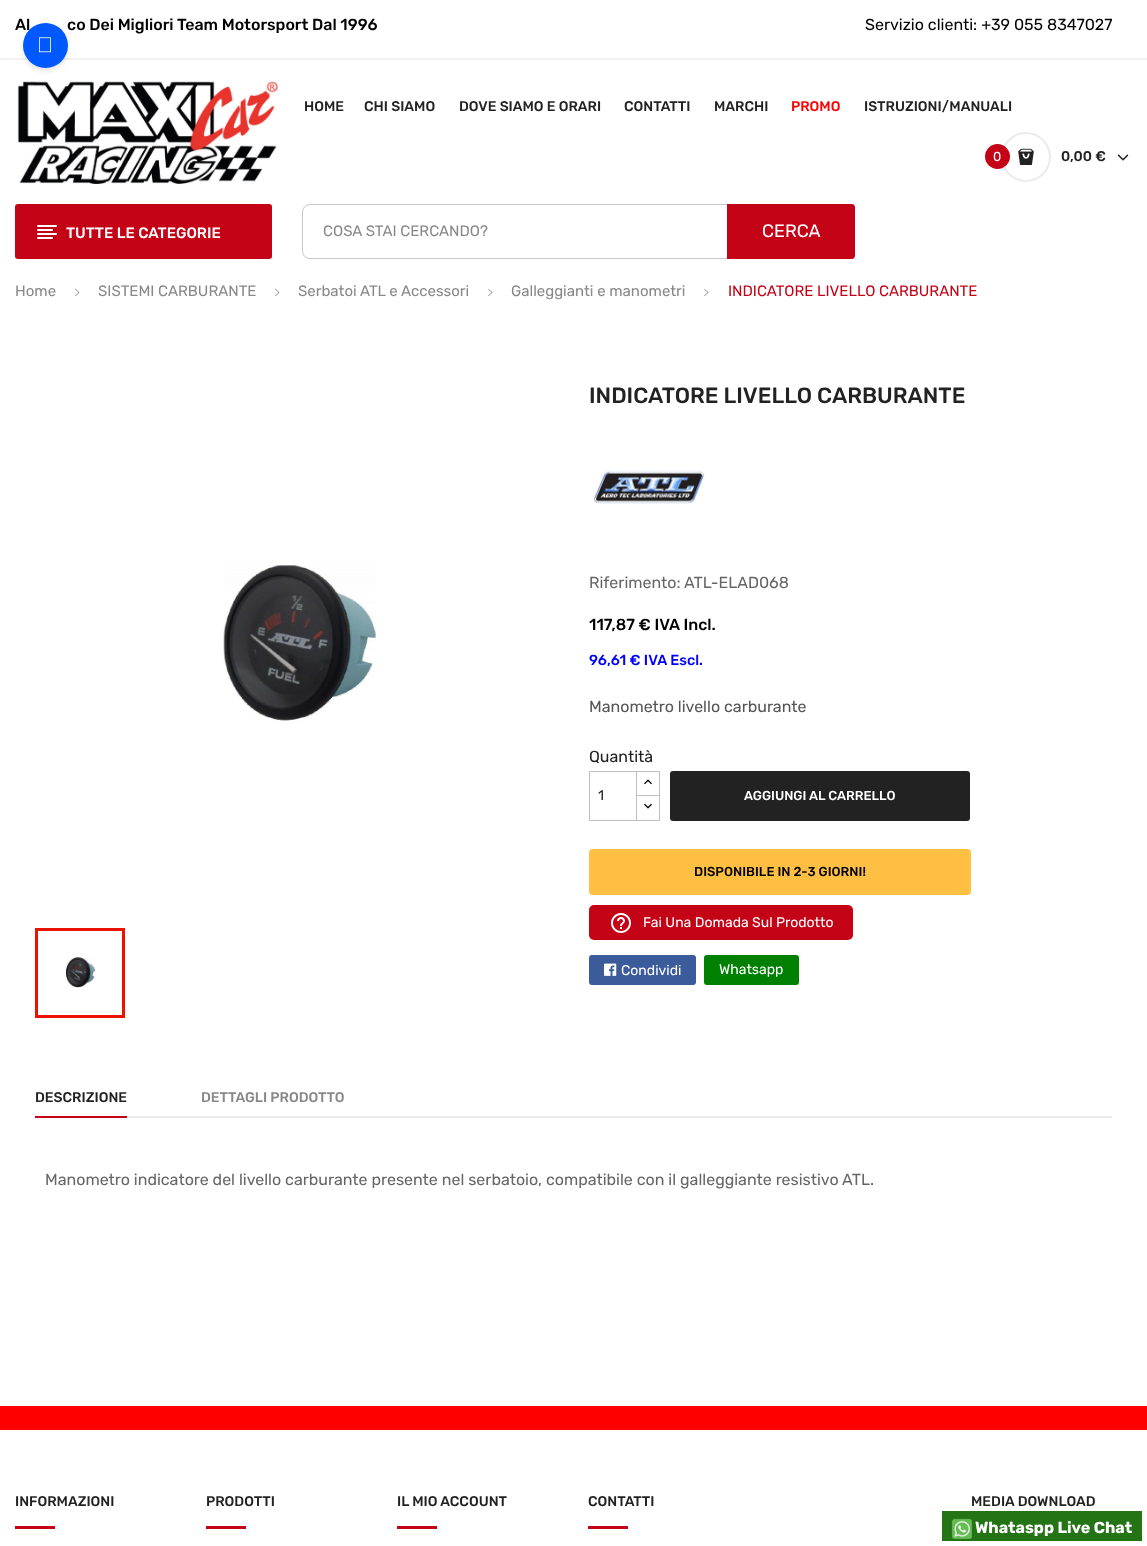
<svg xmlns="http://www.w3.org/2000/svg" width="1147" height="1546">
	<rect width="100%" height="100%" fill="#FFFFFF" />
	<rect x="0" y="58" width="1147" height="2" fill="#F1F1F1" />
	<rect x="23" y="26" width="45" height="45" rx="22.5" fill="#000000" fill-opacity="0.1" filter="blur(2.5px)" />
	<g font-family="Rubik" font-size="16" font-weight="500" fill="#000000">
		<text x="15" y="30">Al</text>
		<text x="67" y="30">co Dei Migliori</text>
	</g>
	<circle cx="45.5" cy="45.5" r="22.5" fill="#0058FF" />
	<image x="39" y="37" width="12" height="16" href="assets/img1.png" />
	<text x="177" y="30" font-family="Rubik" font-size="16" font-weight="500" fill="#000000">Team Motorsport Dal 1996</text>
	<text x="865" y="30" font-family="Rubik" font-size="16" fill="#000000">Servizio clienti: +39 055 8347027</text>
	<image x="17" y="80" width="262" height="104" href="assets/img2.png" />
	<g font-family="Rubik" font-size="14" font-weight="500" fill="#222222">
		<text x="304" y="111">HOME</text>
		<text x="364" y="111">CHI SIAMO</text>
		<text x="459" y="111">DOVE SIAMO E ORARI</text>
		<text x="624" y="111">CONTATTI</text>
		<text x="714" y="111">MARCHI</text>
	</g>
	<text x="791" y="111" font-family="Rubik" font-size="14" font-weight="500" fill="#FF0000">PROMO</text>
	<text x="864" y="111" font-family="Rubik" font-size="14" font-weight="500" fill="#222222">ISTRUZIONI/MANUALI</text>
	<circle cx="1026" cy="157" r="24" fill="none" stroke="#EBEBEB" stroke-width="2" />
	<circle cx="997.5" cy="156.5" r="12.5" fill="#C40316" />
	<text x="993" y="161" font-family="Rubik" font-size="13" fill="#FFFFFF">0</text>
	<image x="1018" y="148" width="16" height="17" href="assets/img3.png" />
	<text x="1061" y="161" font-family="Rubik" font-size="14" font-weight="500" fill="#222222">0,00 €</text>
	<image x="1117" y="154" width="12" height="7" href="assets/img4.png" />
	<rect x="15" y="204" width="257" height="55" rx="3" fill="#C40316" />
	<image x="37" y="225" width="20" height="14" href="assets/img5.png" />
	<text x="66" y="238" font-family="Rubik" font-size="15" font-weight="500" fill="#FFFFFF">TUTTE LE CATEGORIE</text>
	<rect x="302.5" y="204.5" width="552" height="54" rx="7.5" fill="none" stroke="#C8C8C8" />
	<text x="323" y="236" font-family="Rubik" font-size="15" fill="#888888">COSA STAI CERCANDO?</text>
	<path d="M727 204H852C853.5 204 855 205.5 855 207V256C855 257.5 853.5 259 852 259H727Z" fill="#C40316" />
	<text x="762" y="237" font-family="Rubik" font-size="18" fill="#FFFFFF">CERCA</text>
	<text x="15" y="296" font-family="Rubik" font-size="15" fill="#888888">Home</text>
	<image x="75" y="288" width="5" height="9" href="assets/img6.png" />
	<text x="98" y="296" font-family="Rubik" font-size="15" fill="#888888">SISTEMI CARBURANTE</text>
	<image x="275" y="288" width="5" height="9" href="assets/img6.png" />
	<text x="298" y="296" font-family="Rubik" font-size="15" fill="#888888">Serbatoi ATL e Accessori</text>
	<image x="488" y="288" width="5" height="9" href="assets/img6.png" />
	<text x="511" y="296" font-family="Rubik" font-size="15" fill="#888888">Galleggianti e manometri</text>
	<image x="704" y="288" width="5" height="9" href="assets/img6.png" />
	<text x="728" y="296" font-family="Rubik" font-size="15" fill="#C40316">INDICATORE LIVELLO CARBURANTE</text>
	<image x="223" y="565" width="153" height="156" href="assets/img7.png" />
	<rect x="36.5" y="929.5" width="87" height="87" fill="none" stroke="#EC1200" stroke-width="3" />
	<image x="65" y="957" width="31" height="31" href="assets/img8.png" />
	<text x="589" y="403" font-family="Rubik" font-size="22" font-weight="500" fill="#222222">INDICATORE LIVELLO CARBURANTE</text>
	<image x="593" y="470" width="112" height="34" href="assets/img9.png" />
	<text x="589" y="588" font-family="Rubik" font-size="16" fill="#666666">Riferimento: ATL-ELAD068</text>
	<text x="589" y="630" font-family="Rubik" font-size="16" font-weight="500" fill="#000000">117,87 € IVA Incl.</text>
	<text x="589" y="665" font-family="Rubik" font-size="14.5" font-weight="500" fill="#0000FF">96,61 € IVA Escl.</text>
	<text x="589" y="712" font-family="Rubik" font-size="16" fill="#555555">Manometro livello carburante</text>
	<text x="589" y="762" font-family="Rubik" font-size="16" fill="#222222">Quantità</text>
	<rect x="636.5" y="771.5" width="23" height="25" fill="none" stroke="#BFBFBF" />
	<rect x="637" y="796" width="22" height="1" fill="#FFFFFF" />
	<rect x="636.5" y="795.5" width="23" height="25" fill="none" stroke="#BFBFBF" />
	<rect x="589.5" y="771.5" width="47" height="49" fill="none" stroke="#BFBFBF" />
	<text x="598" y="800" font-family="Rubik" font-size="14" fill="#222222">1</text>
	<image x="644" y="779" width="8" height="6" href="assets/img10.png" />
	<image x="644" y="803" width="8" height="6" href="assets/img11.png" />
	<rect x="670" y="771" width="300" height="50" rx="3" fill="#222222" />
	<text x="744" y="800" font-family="Rubik" font-size="13" font-weight="500" fill="#FFFFFF">AGGIUNGI AL CARRELLO</text>
	<rect x="589" y="849" width="382" height="46" rx="4" fill="#FFBF42" />
	<text x="694" y="876" font-family="Rubik" font-size="13" font-weight="500" fill="#000000">DISPONIBILE IN 2-3 GIORNI!</text>
	<rect x="589" y="905" width="264" height="35" rx="5" fill="#C40316" />
	<image x="611" y="913" width="20" height="20" href="assets/img12.png" />
	<text x="643" y="927" font-family="Rubik" font-size="14" fill="#FFFFFF">Fai Una Domada Sul Prodotto</text>
	<rect x="589" y="955" width="107" height="30" rx="3" fill="#3C5B9B" />
	<image x="604" y="963" width="13" height="13" href="assets/img13.png" />
	<text x="621" y="975" font-family="Rubik" font-size="14" fill="#FFFFFF">Condividi</text>
	<rect x="704" y="955" width="95" height="30" rx="3" fill="#008000" />
	<text x="719" y="974" font-family="Rubik" font-size="14" fill="#FFFFFF">Whatsapp</text>
	<rect x="127" y="1116" width="985" height="2" fill="#EBEBEB" />
	<text x="35" y="1102" font-family="Rubik" font-size="14" font-weight="500" fill="#222222">DESCRIZIONE</text>
	<rect x="35" y="1116" width="92" height="2" fill="#C40316" />
	<text x="201" y="1102" font-family="Rubik" font-size="14" font-weight="500" fill="#888888">DETTAGLI PRODOTTO</text>
	<text x="45" y="1185" font-family="Rubik" font-size="16" fill="#666666">Manometro indicatore del livello carburante presente nel serbatoio, compatibile con il galleggiante resistivo ATL.</text>
	<rect x="0" y="1406" width="1147" height="24" fill="#FF0000" />
	<text x="15" y="1506" font-family="Rubik" font-size="14" font-weight="500" fill="#222222">INFORMAZIONI</text>
	<rect x="15" y="1526" width="40" height="3" fill="#C40316" />
	<text x="206" y="1506" font-family="Rubik" font-size="14" font-weight="500" fill="#222222">PRODOTTI</text>
	<rect x="206" y="1526" width="40" height="3" fill="#C40316" />
	<text x="397" y="1506" font-family="Rubik" font-size="14" font-weight="500" fill="#222222">IL MIO ACCOUNT</text>
	<rect x="397" y="1526" width="40" height="3" fill="#C40316" />
	<text x="588" y="1506" font-family="Rubik" font-size="14" font-weight="500" fill="#222222">CONTATTI</text>
	<rect x="588" y="1526" width="40" height="3" fill="#C40316" />
	<text x="971" y="1506" font-family="Rubik" font-size="14" font-weight="500" fill="#222222">MEDIA DOWNLOAD</text>
	<rect x="942" y="1511" width="200" height="30" fill="#247315" />
	<image x="951" y="1518" width="21" height="21" href="assets/img14.png" />
	<text x="975" y="1533" font-family="Rubik" font-size="16" font-weight="700" fill="#FFFFFF">Whataspp Live Chat</text>
</svg>
